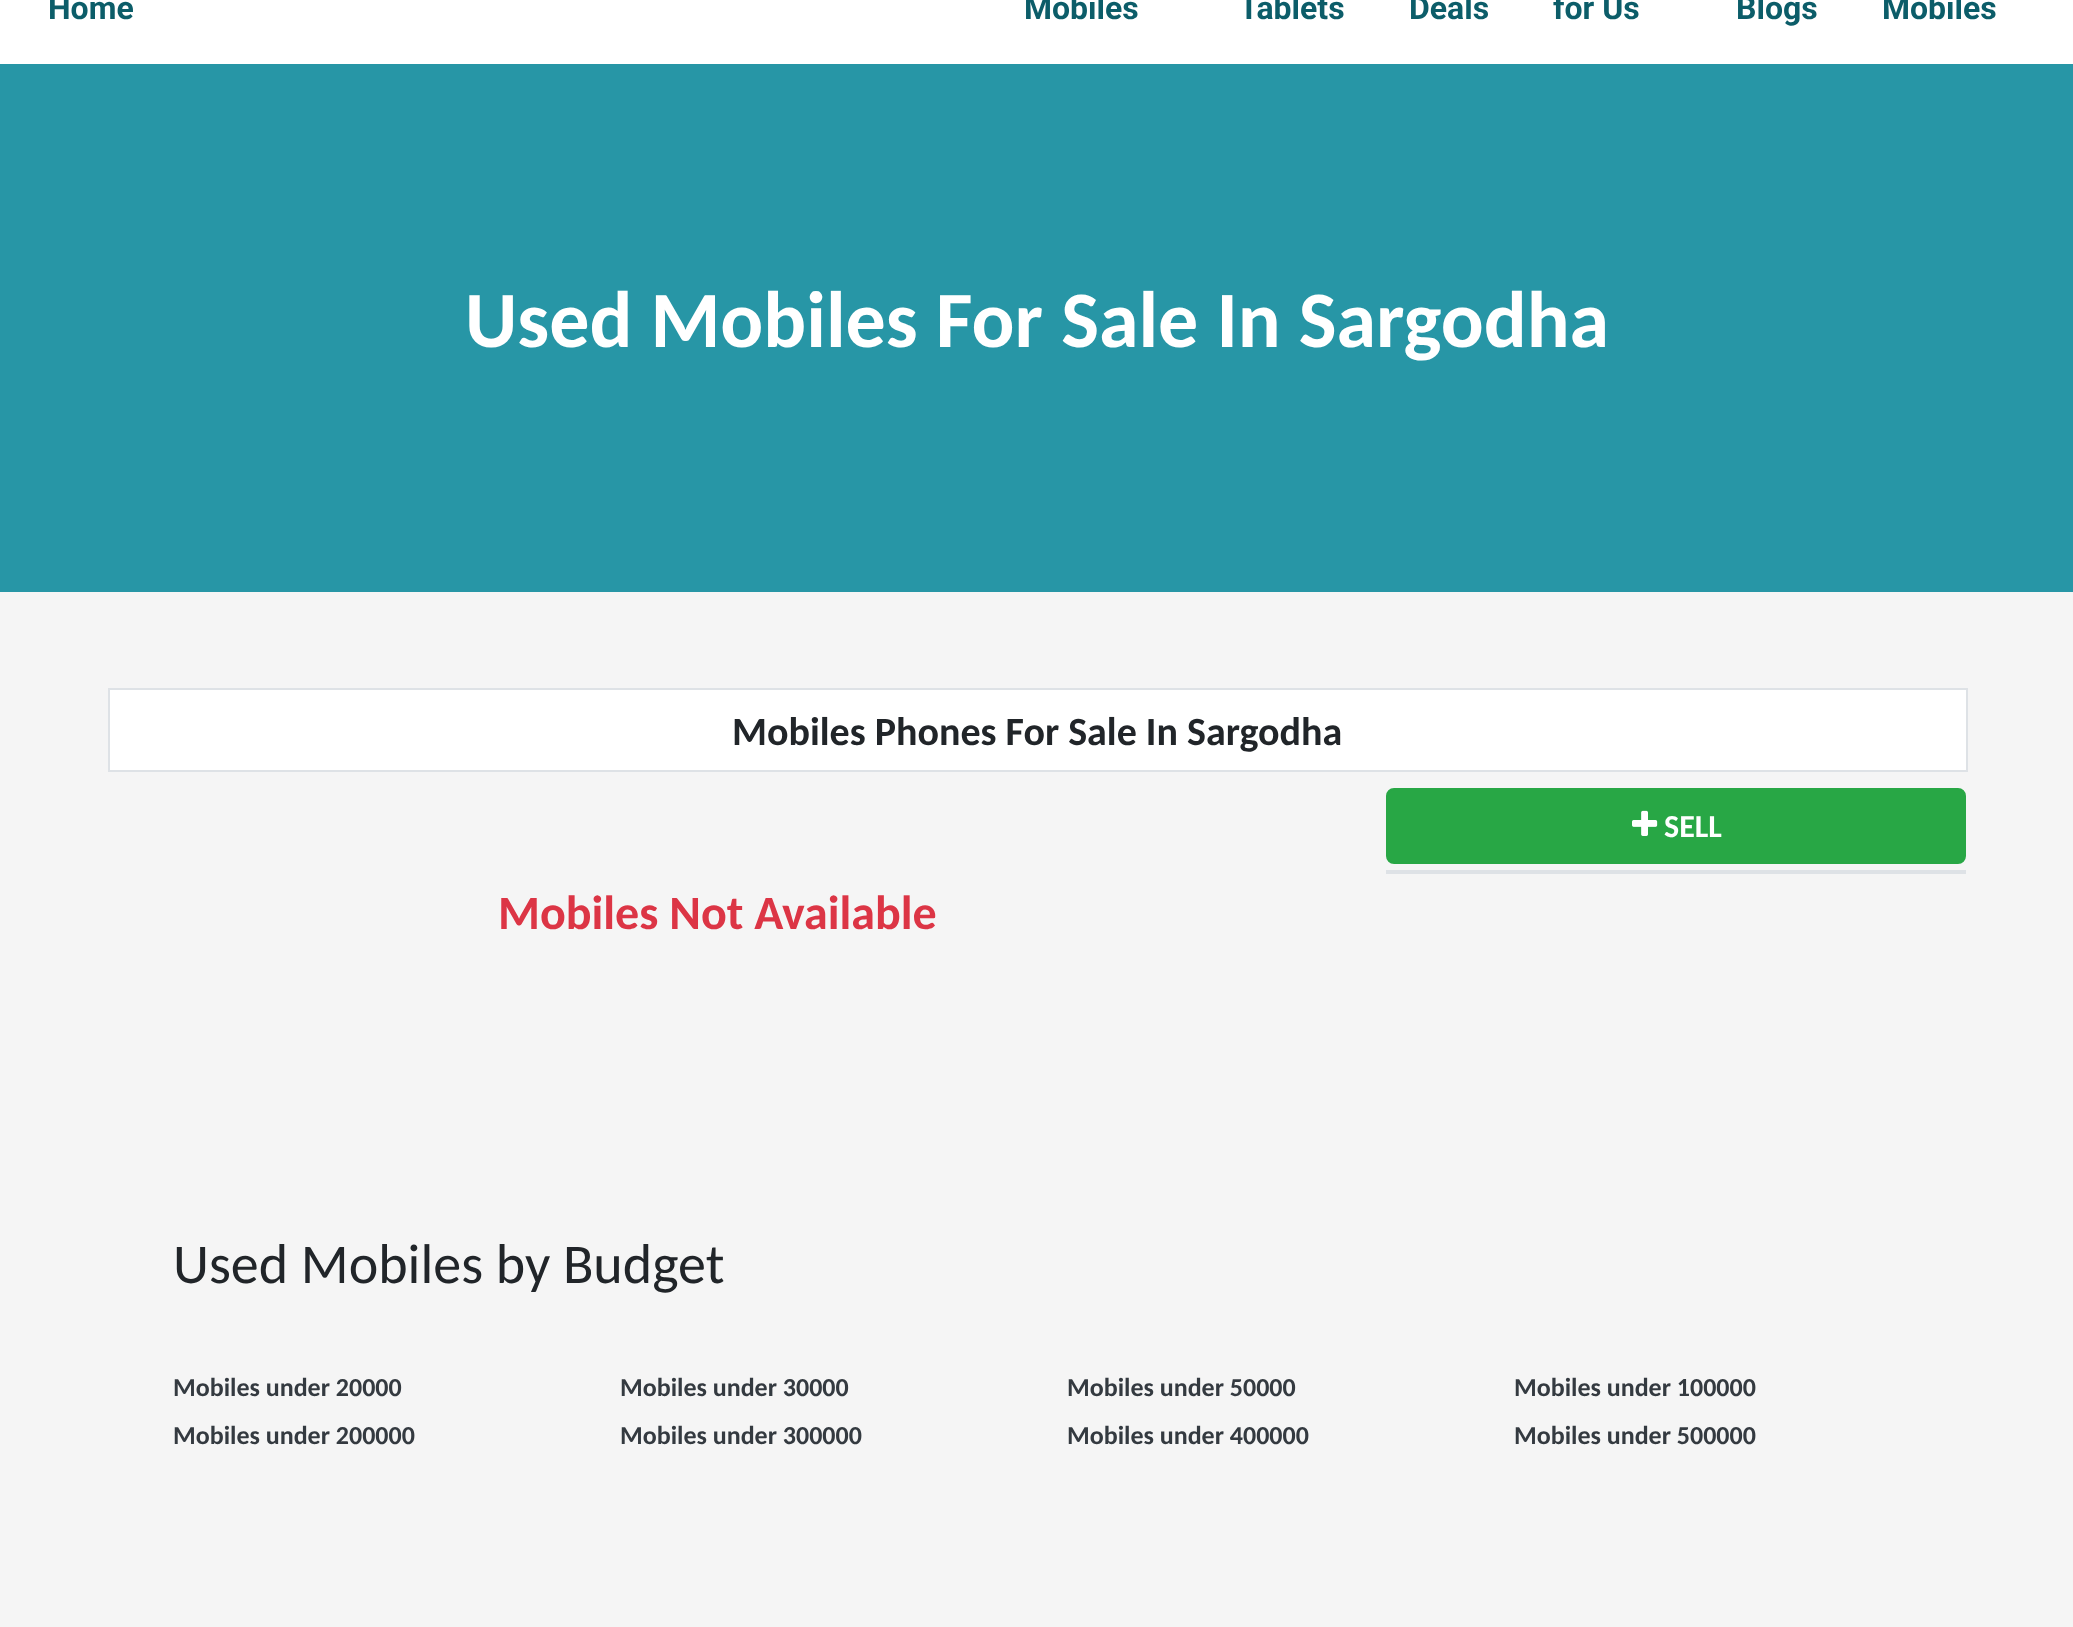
<svg xmlns="http://www.w3.org/2000/svg" width="2073" height="1627">
	<rect width="100%" height="100%" fill="#FFFFFF" />
	<g font-family="Roboto" font-size="32" font-weight="700" fill="#0C5D69">
		<text x="48" y="19">Home</text>
		<text x="1024" y="19">Mobiles</text>
		<text x="1239" y="19">Tablets</text>
		<text x="1409" y="19">Deals</text>
		<text x="1553" y="19">for Us</text>
		<text x="1736" y="19">Blogs</text>
		<text x="1882" y="19">Mobiles</text>
	</g>
	<rect x="0" y="592" width="2073" height="1035" fill="#F5F5F5" />
	<rect x="0" y="64" width="2073" height="528" fill="#2796A6" />
	<text x="465" y="347" font-family="Carlito" font-size="80" font-weight="700" fill="#FFFFFF">Used Mobiles For Sale In Sargodha</text>
	<rect x="109" y="689" width="1858" height="82" fill="#FFFFFF" stroke="#DEE2E6" stroke-width="2" />
	<text x="732" y="745" font-family="Carlito" font-size="40" font-weight="700" fill="#212529">Mobiles Phones For Sale In Sargodha</text>
	<rect x="1387" y="789" width="578" height="74" rx="7" fill="#28A745" stroke="#28A745" stroke-width="2" />
	<image x="1632" y="810" width="26" height="26" href="assets/img1.png" />
	<text x="1664" y="837" font-family="Carlito" font-size="32" font-weight="700" fill="#FFFFFF">SELL</text>
	<rect x="1386" y="870" width="580" height="4" fill="#DEE2E6" />
	<text x="498" y="929" font-family="Carlito" font-size="48" font-weight="700" fill="#DC3545">Mobiles Not Available</text>
	<text x="173" y="1283" font-family="Carlito" font-size="56" fill="#212529">Used Mobiles by Budget</text>
	<g font-family="Carlito" font-size="26" font-weight="700" fill="#343A40">
		<text x="173" y="1396">Mobiles under 20000</text>
		<text x="620" y="1396">Mobiles under 30000</text>
		<text x="1067" y="1396">Mobiles under 50000</text>
		<text x="1514" y="1396">Mobiles under 100000</text>
		<text x="173" y="1444">Mobiles under 200000</text>
		<text x="620" y="1444">Mobiles under 300000</text>
		<text x="1067" y="1444">Mobiles under 400000</text>
		<text x="1514" y="1444">Mobiles under 500000</text>
	</g>
</svg>
